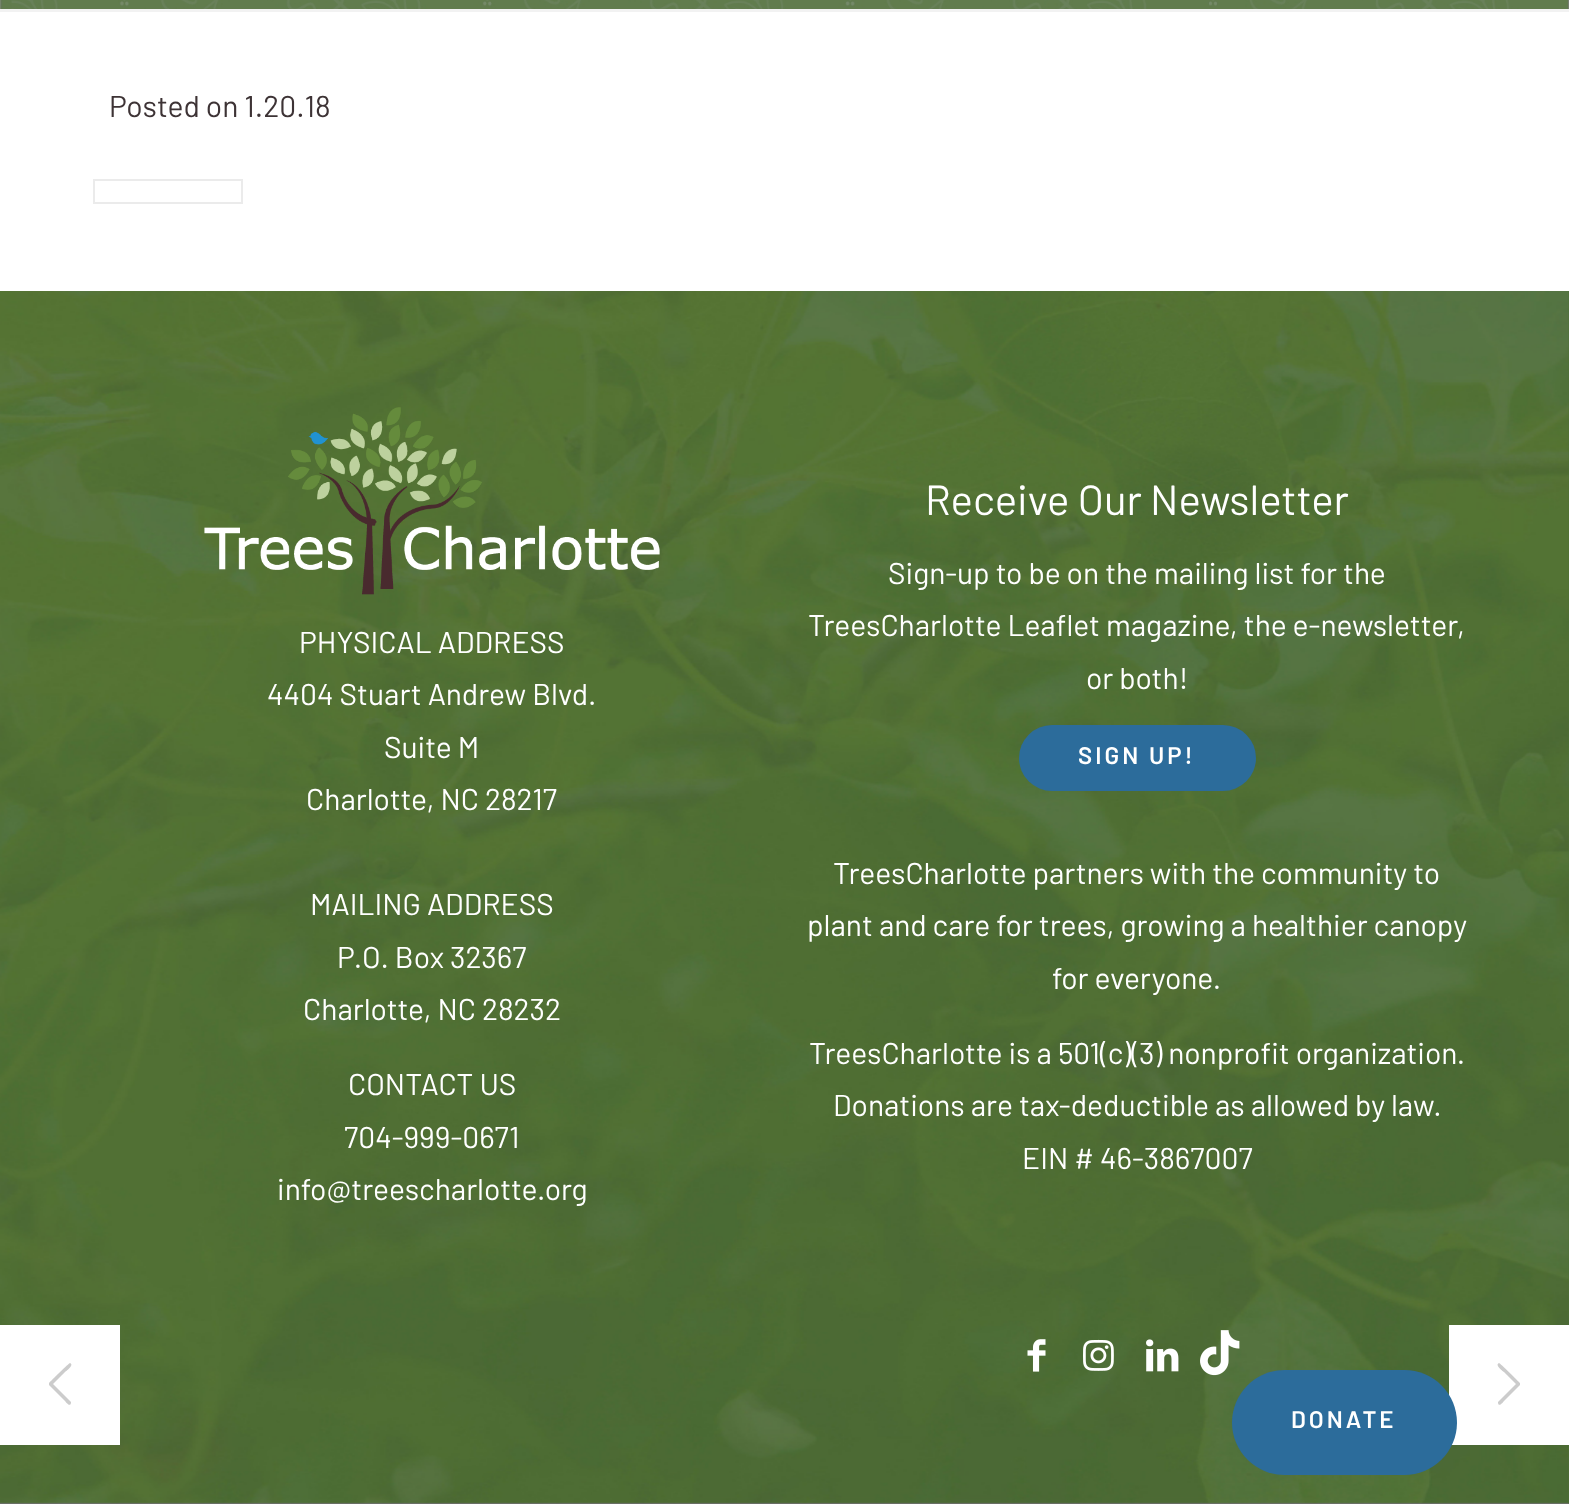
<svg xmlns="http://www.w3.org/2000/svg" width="1569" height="1504">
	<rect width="100%" height="100%" fill="#FFFFFF" />
	<image x="0" y="0" width="1569" height="9" href="assets/img1.png" />
	<rect x="0" y="9" width="1569" height="3" fill="#F2F2F2" />
	<text x="109" y="117" font-family="Barlow" font-size="30" fill="#3D3335">Posted on 1.20.18</text>
	<rect x="94" y="180" width="148" height="23" fill="none" stroke="#EBEBEB" stroke-width="2" />
	<rect x="1568" y="291" width="1" height="1213" fill="#4F6E39" />
	<image x="0" y="291" width="1569" height="1213" href="assets/img2.png" />
	<image x="204" y="407" width="456" height="188" href="assets/img3.png" />
	<g font-family="Barlow" font-size="30" fill="#FFFFFF">
		<text x="299" y="653">PHYSICAL ADDRESS</text>
		<text x="267" y="705">4404 Stuart Andrew Blvd.</text>
		<text x="384" y="758">Suite M</text>
		<text x="306" y="810">Charlotte, NC 28217</text>
		<text x="310" y="915">MAILING ADDRESS</text>
		<text x="337" y="968">P.O. Box 32367</text>
		<text x="303" y="1020">Charlotte, NC 28232</text>
		<text x="348" y="1095">CONTACT US</text>
		<text x="344" y="1148">704-999-0671</text>
		<text x="277" y="1200">info@treescharlotte.org</text>
	</g>
	<text x="925" y="515" font-family="Barlow" font-size="42" fill="#FFFFFF">Receive Our Newsletter</text>
	<g font-family="Barlow" font-size="30" fill="#FFFFFF">
		<text x="888" y="584">Sign-up to be on the mailing list for the</text>
		<text x="808" y="636">TreesCharlotte Leaflet magazine, the e-newsletter,</text>
		<text x="1086" y="689">or both!</text>
	</g>
	<rect x="1019" y="725" width="237" height="66" rx="33" fill="#2C6C9B" />
	<text x="1078" y="764" font-family="Barlow" font-size="24" font-weight="600" letter-spacing="3" fill="#FFFFFF">SIGN UP!</text>
	<g font-family="Barlow" font-size="30" fill="#FFFFFF">
		<text x="833" y="884">TreesCharlotte partners with the community to</text>
		<text x="807" y="936">plant and care for trees, growing a healthier canopy</text>
		<text x="1052" y="989">for everyone.</text>
		<text x="809" y="1064">TreesCharlotte is a 501(c)(3) nonprofit organization.</text>
		<text x="833" y="1116">Donations are tax-deductible as allowed by law.</text>
		<text x="1022" y="1169">EIN # 46-3867007</text>
	</g>
	<image x="1027" y="1339" width="19" height="33" href="assets/img4.png" />
	<image x="1083" y="1339" width="31" height="32" href="assets/img5.png" />
	<image x="1146" y="1339" width="33" height="33" href="assets/img6.png" />
	<image x="1200" y="1330" width="40" height="46" href="assets/img7.png" />
	<rect x="0" y="1325" width="120" height="120" fill="#FFFFFF" />
	<path d="M71 1402V1403C70 1408 65 1401 65 1401L49 1385V1383C51 1381 69 1363 70 1363C75 1365 65 1372 65 1372L53 1384Z" fill="#CCCCCC" />
	<rect x="1449" y="1325" width="120" height="120" fill="#FFFFFF" />
	<rect x="1232" y="1370" width="225" height="105" rx="52.5" fill="#2C6C9B" />
	<text x="1291" y="1428" font-family="Barlow" font-size="24" font-weight="600" letter-spacing="3" fill="#FFFFFF">DONATE</text>
	<path d="M1498 1402L1516 1384L1504 1372C1504 1372 1494 1365 1499 1363C1500 1363 1518 1381 1520 1383V1385L1504 1401C1504 1401 1499 1408 1498 1403Z" fill="#CCCCCC" />
</svg>
